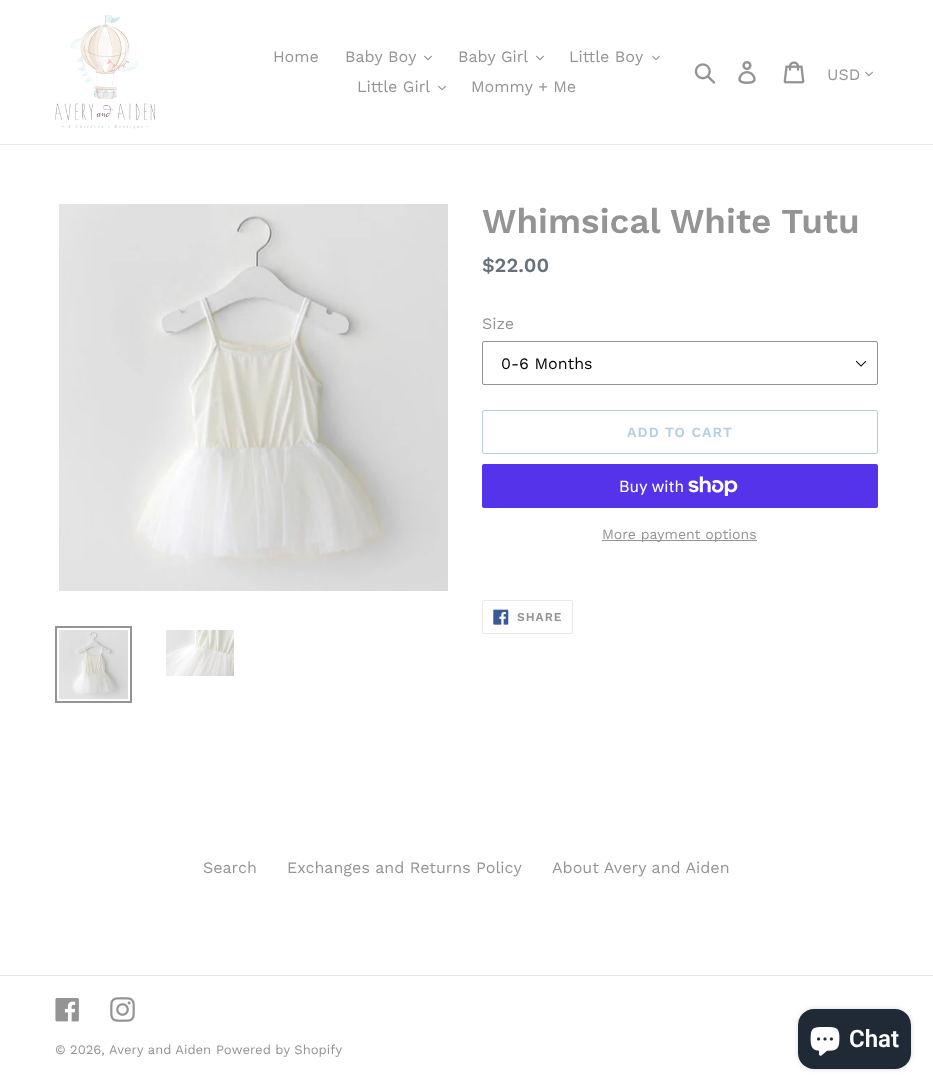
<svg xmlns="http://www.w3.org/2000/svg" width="933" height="1090">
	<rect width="100%" height="100%" fill="#FFFFFF" />
	<rect x="0" y="144" width="933" height="1" fill="#E8E9EB" />
	<image x="55" y="15" width="100" height="114" href="assets/img1.png" />
	<g font-family="Work Sans" font-size="16" fill="#949494">
		<text x="273" y="62">Home</text>
		<text x="345" y="62">Baby Boy</text>
	</g>
	<image x="424" y="55" width="8" height="6" href="assets/img2.png" />
	<text x="458" y="62" font-family="Work Sans" font-size="16" fill="#949494">Baby Girl</text>
	<image x="536" y="55" width="8" height="6" href="assets/img2.png" />
	<text x="569" y="62" font-family="Work Sans" font-size="16" fill="#949494">Little Boy</text>
	<image x="652" y="55" width="8" height="6" href="assets/img2.png" />
	<text x="357" y="92" font-family="Work Sans" font-size="16" fill="#949494">Little Girl</text>
	<image x="438" y="85" width="8" height="6" href="assets/img2.png" />
	<text x="471" y="92" font-family="Work Sans" font-size="16" fill="#949494">Mommy + Me</text>
	<image x="694" y="63" width="22" height="21" href="assets/img3.png" />
	<image x="738" y="61" width="18" height="23" href="assets/img4.png" />
	<image x="783" y="61" width="22" height="23" href="assets/img5.png" />
	<text x="827" y="80" font-family="Work Sans" font-size="16" fill="#949494">USD</text>
	<image x="865" y="71" width="8" height="6" href="assets/img2.png" />
	<image x="59" y="204" width="389" height="387" href="assets/img6.png" />
	<rect x="56" y="627" width="75" height="75" fill="none" stroke="#949494" stroke-width="2" />
	<image x="59" y="630" width="69" height="69" href="assets/img7.png" />
	<image x="166" y="630" width="68" height="46" href="assets/img8.png" />
	<text x="482" y="233" font-family="Work Sans" font-size="35" font-weight="600" fill="#949494">Whimsical White Tutu</text>
	<text x="482" y="272" font-family="Work Sans" font-size="20" font-weight="600" fill="#69727B">$22.00</text>
	<text x="482" y="329" font-family="Work Sans" font-size="16" fill="#949494">Size</text>
	<image x="855" y="360" width="12" height="7" href="assets/img9.png" />
	<rect x="482.5" y="341.5" width="395" height="43" rx="1.5" fill="none" stroke="#949494" />
	<text x="501" y="369" font-family="Work Sans" font-size="16" fill="#000000">0-6 Months</text>
	<rect x="482.5" y="410.5" width="395" height="43" rx="1.5" fill="none" stroke="#B3CFE3" />
	<text x="627" y="437" font-family="Work Sans" font-size="14" font-weight="600" letter-spacing="1.1" fill="#B3CFE3">ADD TO CART</text>
	<rect x="482" y="464" width="396" height="44" rx="2" fill="#5433EB" />
	<text x="619" y="492" font-family="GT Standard" font-size="16" fill="#FFFFFF">Buy with</text>
	<image x="688" y="476" width="50" height="20" href="assets/img10.png" />
	<rect x="602" y="540" width="155" height="1" fill="#949494" />
	<text x="602" y="539" font-family="Work Sans" font-size="14" fill="#949494">More payment options</text>
	<rect x="482.5" y="600.5" width="90" height="33" rx="1.5" fill="none" stroke="#E8E9EB" />
	<image x="493" y="609" width="16" height="16" href="assets/img11.png" />
	<text x="517" y="621" font-family="Work Sans" font-size="12" font-weight="600" letter-spacing="1" fill="#949494">SHARE</text>
	<g font-family="Work Sans" font-size="16" fill="#949494">
		<text x="203" y="873">Search</text>
		<text x="287" y="873">Exchanges and Returns Policy</text>
		<text x="552" y="873">About Avery and Aiden</text>
	</g>
	<rect x="0" y="975" width="933" height="1" fill="#E6E6E6" />
	<image x="55" y="998" width="24" height="24" href="assets/img12.png" />
	<image x="110" y="997" width="25" height="25" href="assets/img13.png" />
	<g font-family="Work Sans" font-size="13" fill="#949494">
		<text x="55" y="1054">© 2026,</text>
		<text x="109" y="1054">Avery and Aiden</text>
		<text x="216" y="1054">Powered by Shopify</text>
	</g>
	<rect x="798" y="1009" width="113" height="60" rx="16" fill="#000000" fill-opacity="0.15" filter="blur(2.5px)" />
	<rect x="798" y="1009" width="113" height="60" rx="16" fill="#202A36" />
	<image x="810" y="1027" width="30" height="29" href="assets/img14.png" />
	<text x="849" y="1047" font-family="Roboto" font-size="24" font-weight="600" fill="#FFFFFF">Chat</text>
</svg>
